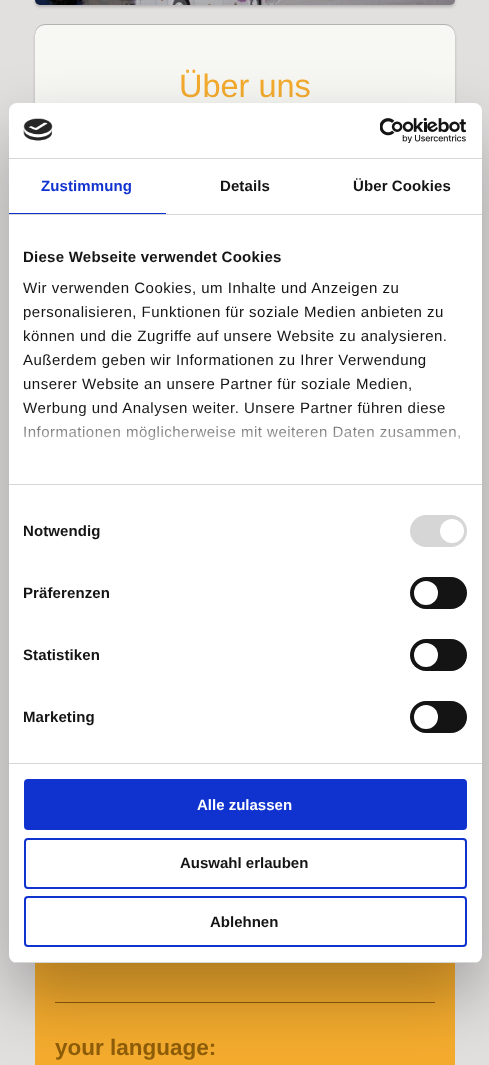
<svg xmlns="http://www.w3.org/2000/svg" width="489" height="1065">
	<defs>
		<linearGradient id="g1" gradientUnits="userSpaceOnUse" x1="239" y1="484" x2="239" y2="409"><stop offset="0" stop-color="#FFFFFF" /><stop offset="0.5" stop-color="#FFFFFF" stop-opacity="0.8" /><stop offset="1" stop-color="#FFFFFF" stop-opacity="0" /></linearGradient>
		<clipPath id="clip1"><rect x="9" y="103" width="473" height="860" rx="8" /></clipPath>
	</defs>
	<rect width="100%" height="100%" fill="#E2DFDF" />
	<rect x="35" y="-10" width="420" height="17" rx="5" fill="#000000" fill-opacity="0.2" filter="blur(1.5px)" />
	<image x="35" y="0" width="420" height="5" href="assets/img1.png" />
	<rect x="35" y="27" width="420" height="780" rx="10" fill="#000000" fill-opacity="0.2" filter="blur(1.5px)" />
	<rect x="35" y="24" width="420" height="780" rx="10" fill="#000000" fill-opacity="0.2" filter="blur(0.5px)" />
	<rect x="35" y="25" width="420" height="780" rx="10" fill="#F7F7F3" />
	<text x="179" y="97" font-family="Liberation Sans" font-size="32.5" fill="#F5AC2E">Über uns</text>
	<rect x="35" y="963" width="420" height="102" fill="#F5AC2E" />
	<rect x="55" y="1002" width="380" height="1" fill="#8F5E0A" />
	<text x="55" y="1055" font-family="Liberation Sans" font-size="22.5" font-weight="700" fill="#8F5E0A">your language:</text>
	<rect x="9" y="135" width="473" height="860" rx="8" fill="#000000" fill-opacity="0.3" filter="blur(34px)" />
	<rect x="9" y="103" width="473" height="860" rx="8" fill="#FFFFFF" />
	<rect x="9" y="158" width="473" height="1" fill="#D6D6D6" />
	<image x="23" y="118" width="30" height="23" href="assets/img2.png" />
	<image x="380" y="118" width="87" height="25" href="assets/img3.png" />
	<rect x="9" y="214" width="473" height="1" fill="#D6D6D6" />
	<rect x="9" y="213" width="157" height="1" fill="#1032CF" />
	<text x="41" y="191" font-family="Liberation Sans" font-size="15" font-weight="700" letter-spacing="0.1" fill="#1032CF">Zustimmung</text>
	<g font-family="Liberation Sans" font-size="15" font-weight="700" letter-spacing="0.1" fill="#141414">
		<text x="220" y="191">Details</text>
		<text x="353" y="191">Über Cookies</text>
	</g>
	<rect x="9" y="484" width="473" height="1" fill="#D6D6D6" />
	<text x="23" y="262" font-family="Liberation Sans" font-size="15" font-weight="700" letter-spacing="0.25" fill="#141414">Diese Webseite verwendet Cookies</text>
	<g font-family="Liberation Sans" font-size="15" letter-spacing="0.5" fill="#141414">
		<text x="23" y="293">Wir verwenden Cookies, um Inhalte und Anzeigen zu</text>
		<text x="23" y="317">personalisieren, Funktionen für soziale Medien anbieten zu</text>
		<text x="23" y="341">können und die Zugriffe auf unsere Website zu analysieren.</text>
		<text x="23" y="365">Außerdem geben wir Informationen zu Ihrer Verwendung</text>
		<text x="23" y="389">unserer Website an unsere Partner für soziale Medien,</text>
		<text x="23" y="413">Werbung und Analysen weiter. Unsere Partner führen diese</text>
		<text x="23" y="437">Informationen möglicherweise mit weiteren Daten zusammen,</text>
	</g>
	<rect x="24" y="410" width="436" height="31" fill="url(#g1)" />
	<rect x="9" y="763" width="473" height="1" fill="#D6D6D6" />
	<text x="23" y="536" font-family="Liberation Sans" font-size="15" font-weight="700" letter-spacing="0.1" fill="#141414">Notwendig</text>
	<rect x="410" y="515" width="57" height="32" rx="16" fill="#D6D6D6" />
	<circle cx="452" cy="531" r="12" fill="#FFFFFF" />
	<text x="23" y="598" font-family="Liberation Sans" font-size="15" font-weight="700" letter-spacing="0.1" fill="#141414">Präferenzen</text>
	<rect x="410" y="577" width="57" height="32" rx="16" fill="#141414" />
	<circle cx="426" cy="593" r="12" fill="#FFFFFF" />
	<text x="23" y="660" font-family="Liberation Sans" font-size="15" font-weight="700" letter-spacing="0.1" fill="#141414">Statistiken</text>
	<rect x="410" y="639" width="57" height="32" rx="16" fill="#141414" />
	<circle cx="426" cy="655" r="12" fill="#FFFFFF" />
	<text x="23" y="722" font-family="Liberation Sans" font-size="15" font-weight="700" letter-spacing="0.1" fill="#141414">Marketing</text>
	<rect x="410" y="701" width="57" height="32" rx="16" fill="#141414" />
	<circle cx="426" cy="717" r="12" fill="#FFFFFF" />
	<g clip-path="url(#clip1)">
		<rect x="9" y="962" width="473" height="1" fill="#D6D6D6" />
	</g>
	<rect x="25" y="780" width="441" height="49" rx="3" fill="#1032CF" stroke="#1032CF" stroke-width="2" />
	<text x="197" y="810" font-family="Liberation Sans" font-size="15" font-weight="700" fill="#FFFFFF">Alle zulassen</text>
	<rect x="25" y="839" width="441" height="49" rx="3" fill="none" stroke="#1032CF" stroke-width="2" />
	<text x="180" y="868" font-family="Liberation Sans" font-size="15" font-weight="700" fill="#141414">Auswahl erlauben</text>
	<rect x="25" y="897" width="441" height="49" rx="3" fill="none" stroke="#1032CF" stroke-width="2" />
	<text x="210" y="927" font-family="Liberation Sans" font-size="15" font-weight="700" fill="#141414">Ablehnen</text>
</svg>
